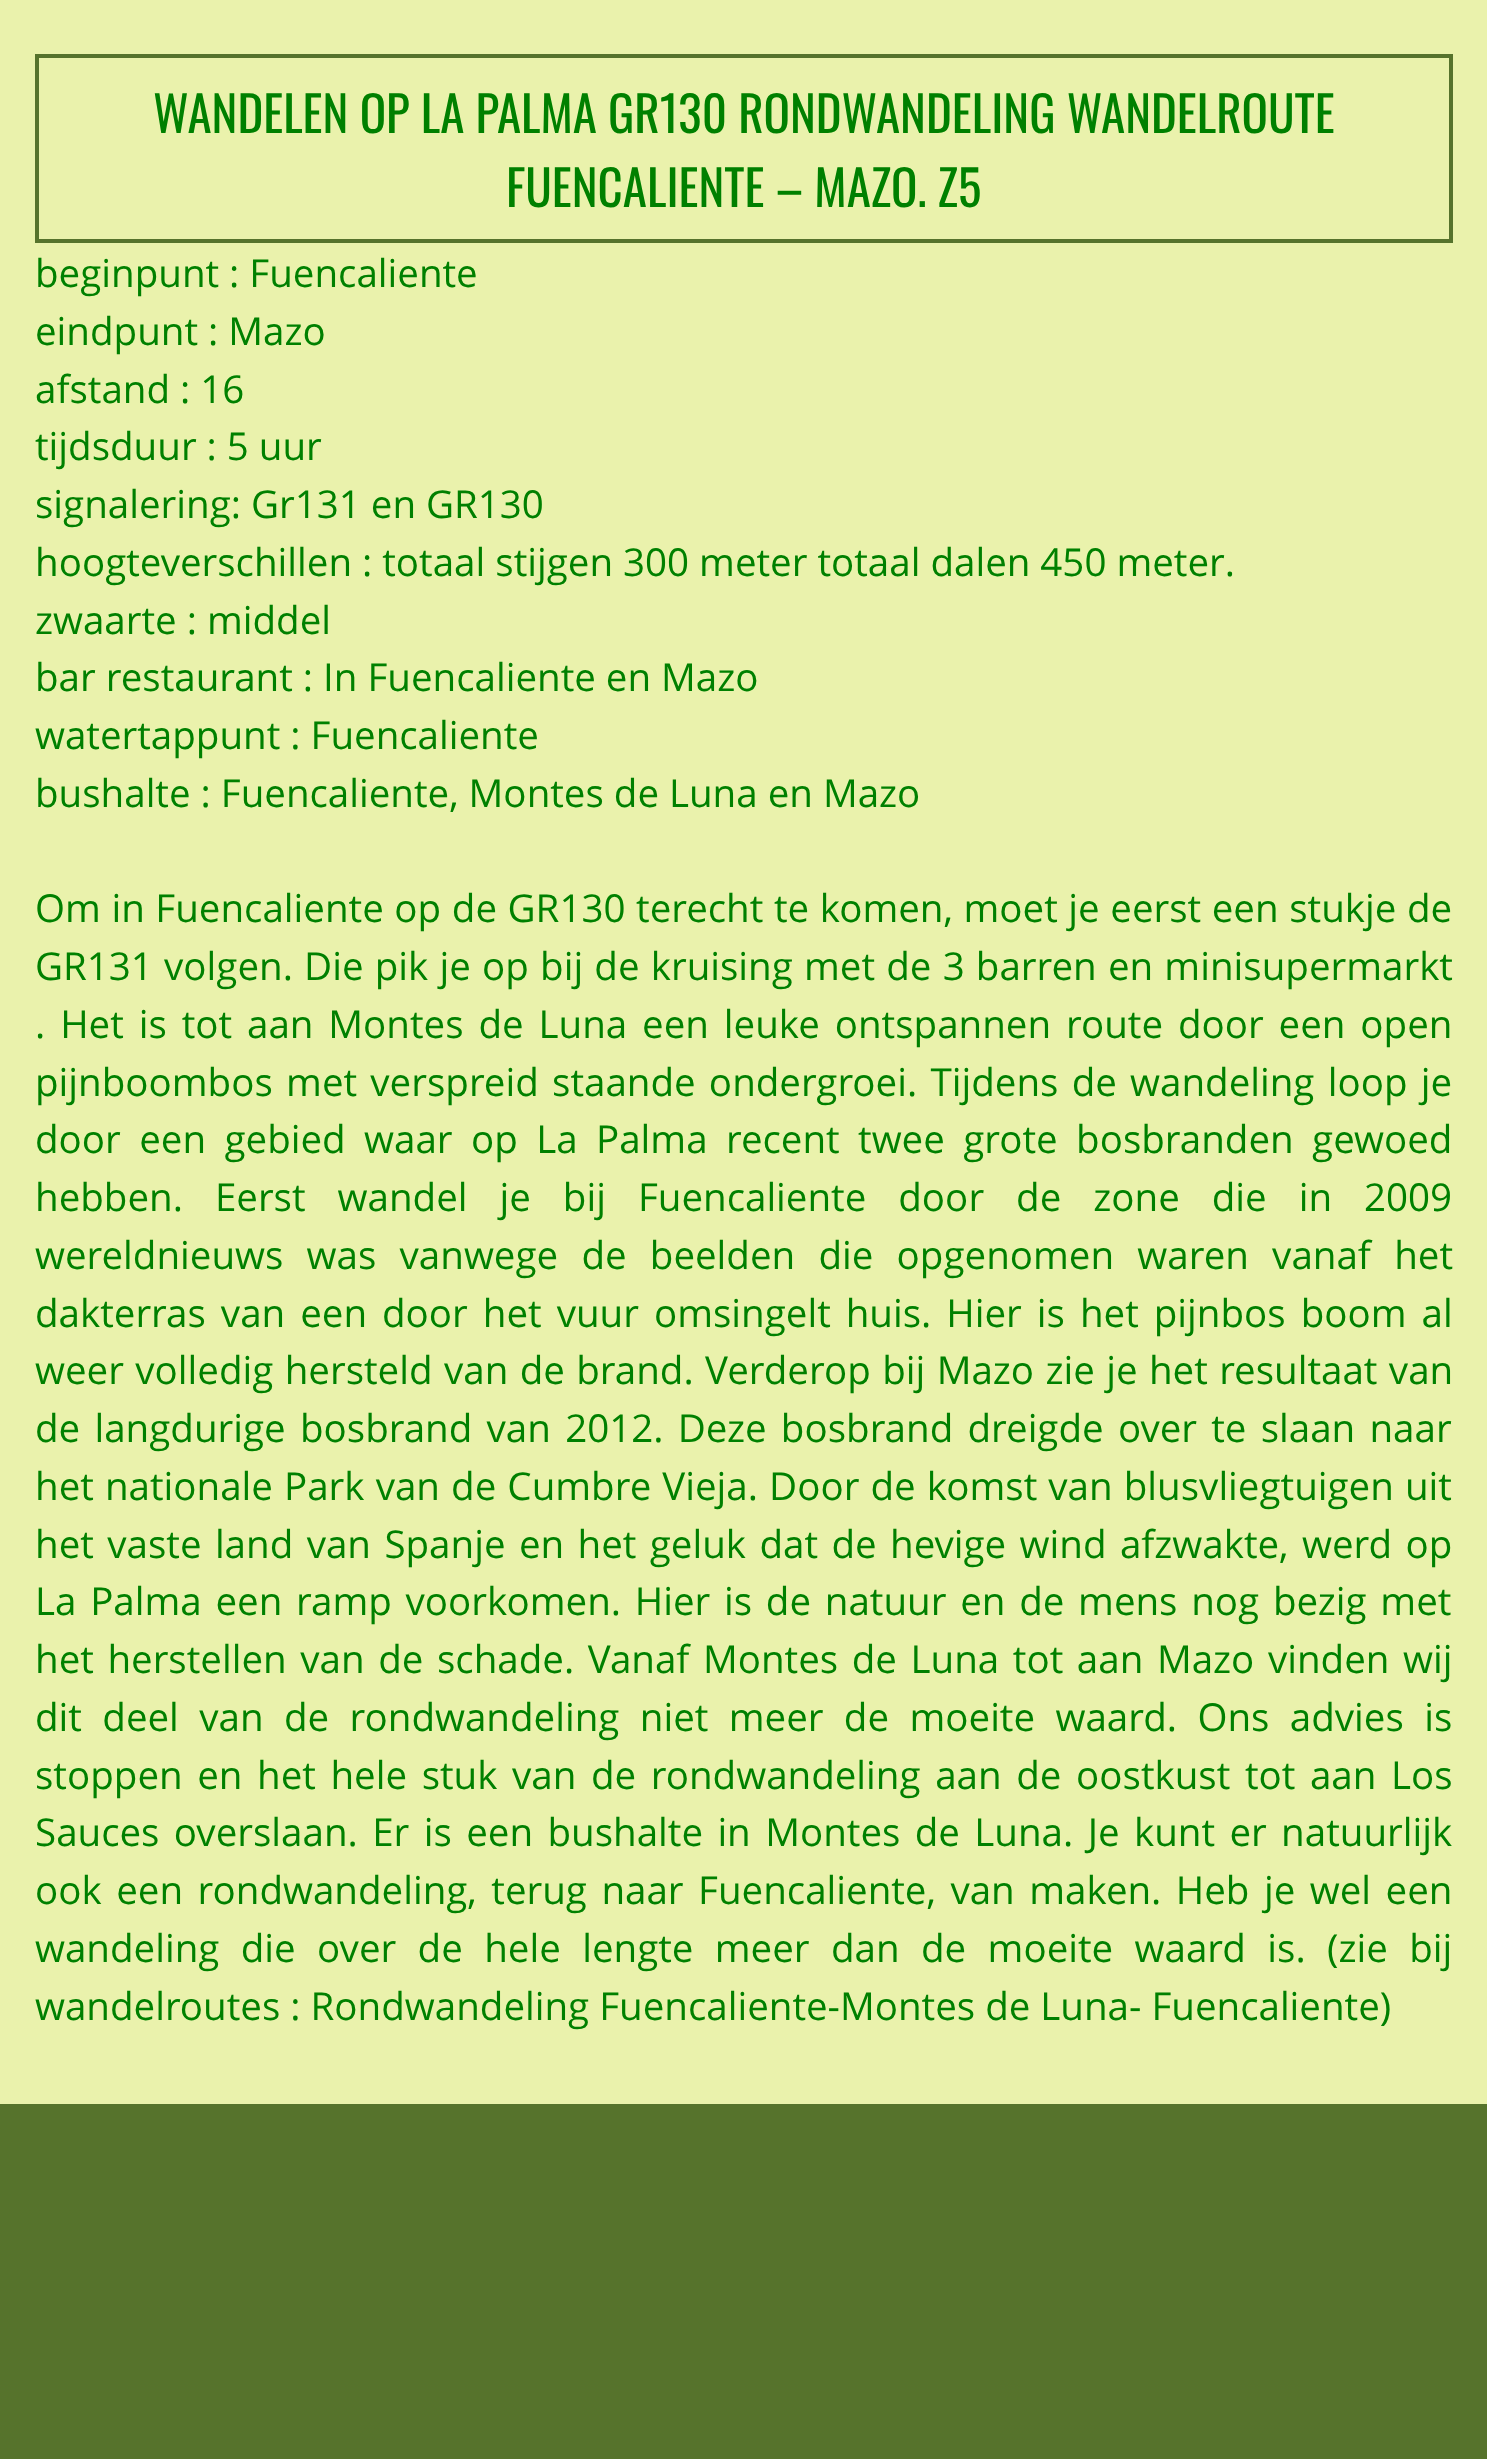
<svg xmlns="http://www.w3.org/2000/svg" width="1487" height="2459">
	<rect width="100%" height="100%" fill="#56732C" />
	<rect x="0" y="0" width="1487" height="2104" fill="#EAF2AC" />
	<rect x="37" y="56" width="1414" height="185" fill="none" stroke="#56732C" stroke-width="4" />
	<g font-family="Oswald" font-size="49" fill="#008000">
		<text x="153" y="133">WANDELEN OP LA PALMA GR130 RONDWANDELING WANDELROUTE</text>
		<text x="506" y="207">FUENCALIENTE – MAZO. Z5</text>
	</g>
	<g font-family="Open Sans" font-size="38.5" fill="#008000">
		<text x="35" y="287">beginpunt : Fuencaliente</text>
		<text x="35" y="345">eindpunt : Mazo</text>
		<text x="35" y="403">afstand : 16</text>
		<text x="35" y="460">tijdsduur : 5 uur</text>
		<text x="35" y="518">signalering: Gr131 en GR130</text>
		<text x="35" y="576">hoogteverschillen : totaal stijgen 300 meter totaal dalen 450 meter.</text>
		<text x="35" y="634">zwaarte : middel</text>
		<text x="35" y="691">bar restaurant : In Fuencaliente en Mazo</text>
		<text x="35" y="749">watertappunt : Fuencaliente</text>
		<text x="35" y="807">bushalte : Fuencaliente, Montes de Luna en Mazo</text>
		<text x="35" y="922" word-spacing="0.6">Om in Fuencaliente op de GR130 terecht te komen, moet je eerst een stukje de</text>
		<text x="35" y="980" word-spacing="1.2">GR131 volgen. Die pik je op bij de kruising met de 3 barren en minisupermarkt</text>
		<text x="35" y="1038" word-spacing="4.9">. Het is tot aan Montes de Luna een leuke ontspannen route door een open</text>
		<text x="35" y="1096" word-spacing="3.25">pijnboombos met verspreid staande ondergroei. Tijdens de wandeling loop je</text>
		<text x="35" y="1153" word-spacing="8.4">door een gebied waar op La Palma recent twee grote bosbranden gewoed</text>
		<text x="35" y="1211" word-spacing="22">hebben. Eerst wandel je bij Fuencaliente door de zone die in 2009</text>
		<text x="35" y="1269" word-spacing="13.25">wereldnieuws was vanwege de beelden die opgenomen waren vanaf het</text>
		<text x="35" y="1327" word-spacing="5">dakterras van een door het vuur omsingelt huis. Hier is het pijnbos boom al</text>
		<text x="35" y="1384" word-spacing="1.4">weer volledig hersteld van de brand. Verderop bij Mazo zie je het resultaat van</text>
		<text x="35" y="1442" word-spacing="4.25">de langdurige bosbrand van 2012. Deze bosbrand dreigde over te slaan naar</text>
		<text x="35" y="1500" word-spacing="1.1">het nationale Park van de Cumbre Vieja. Door de komst van blusvliegtuigen uit</text>
		<text x="35" y="1558" word-spacing="3.4">het vaste land van Spanje en het geluk dat de hevige wind afzwakte, werd op</text>
		<text x="35" y="1615" word-spacing="3.75">La Palma een ramp voorkomen. Hier is de natuur en de mens nog bezig met</text>
		<text x="35" y="1673" word-spacing="3.6">het herstellen van de schade. Vanaf Montes de Luna tot aan Mazo vinden wij</text>
		<text x="35" y="1731" word-spacing="10.4">dit deel van de rondwandeling niet meer de moeite waard. Ons advies is</text>
		<text x="35" y="1789" word-spacing="4.6">stoppen en het hele stuk van de rondwandeling aan de oostkust tot aan Los</text>
		<text x="35" y="1846" word-spacing="4.4">Sauces overslaan. Er is een bushalte in Montes de Luna. Je kunt er natuurlijk</text>
		<text x="35" y="1904" word-spacing="4.5">ook een rondwandeling, terug naar Fuencaliente, van maken. Heb je wel een</text>
		<text x="35" y="1962" word-spacing="11.4">wandeling die over de hele lengte meer dan de moeite waard is. (zie bij</text>
		<text x="35" y="2020">wandelroutes : Rondwandeling Fuencaliente-Montes de Luna- Fuencaliente)</text>
	</g>
</svg>
